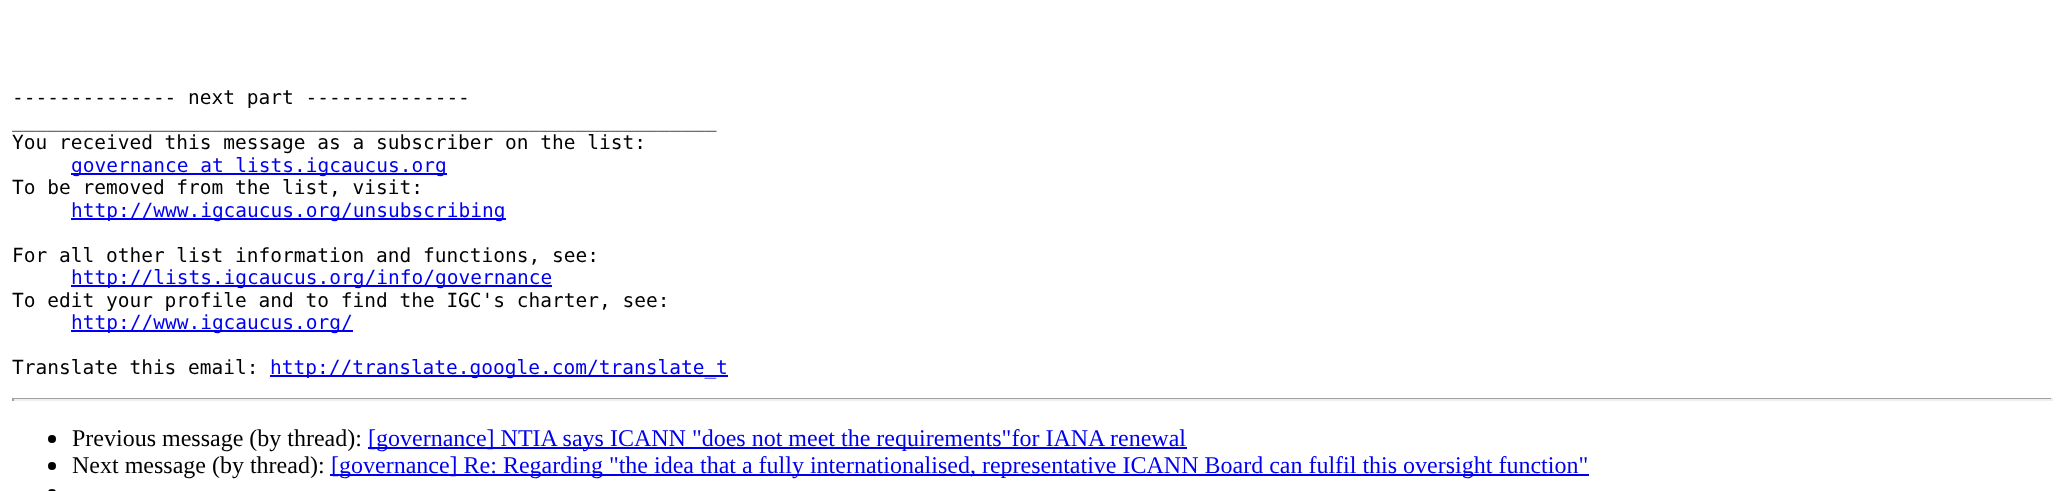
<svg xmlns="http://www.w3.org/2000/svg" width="2064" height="491">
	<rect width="100%" height="100%" fill="#FFFFFF" />
	<g font-family="DejaVu Sans Mono" font-size="19.5" fill="#000000">
		<text x="12" y="104">-------------- next part --------------</text>
		<text x="12" y="127">____________________________________________________________</text>
		<text x="12" y="149">You received this message as a subscriber on the list:</text>
	</g>
	<rect x="71" y="173" width="376" height="2" fill="#0000EE" />
	<text x="71" y="172" font-family="DejaVu Sans Mono" font-size="19.5" fill="#0000EE">governance at lists.igcaucus.org</text>
	<text x="12" y="194" font-family="DejaVu Sans Mono" font-size="19.5" fill="#000000">To be removed from the list, visit:</text>
	<rect x="71" y="218" width="435" height="2" fill="#0000EE" />
	<text x="71" y="217" font-family="DejaVu Sans Mono" font-size="19.5" fill="#0000EE">http://www.igcaucus.org/unsubscribing</text>
	<text x="12" y="262" font-family="DejaVu Sans Mono" font-size="19.5" fill="#000000">For all other list information and functions, see:</text>
	<rect x="71" y="285" width="481" height="2" fill="#0000EE" />
	<text x="71" y="284" font-family="DejaVu Sans Mono" font-size="19.5" fill="#0000EE">http://lists.igcaucus.org/info/governance</text>
	<text x="12" y="307" font-family="DejaVu Sans Mono" font-size="19.5" fill="#000000">To edit your profile and to find the IGC's charter, see:</text>
	<rect x="71" y="330" width="282" height="2" fill="#0000EE" />
	<text x="71" y="329" font-family="DejaVu Sans Mono" font-size="19.5" fill="#0000EE">http://www.igcaucus.org/</text>
	<text x="12" y="374" font-family="DejaVu Sans Mono" font-size="19.5" fill="#000000">Translate this email:</text>
	<rect x="270" y="375" width="458" height="2" fill="#0000EE" />
	<text x="270" y="374" font-family="DejaVu Sans Mono" font-size="19.5" fill="#0000EE">http://translate.google.com/translate_t</text>
	<rect x="12" y="398" width="2040" height="1" fill="#9F9F9F" />
	<rect x="2051" y="398" width="2" height="3" fill="#EEEEEE" />
	<rect x="12" y="399" width="2040" height="2" fill="#EEEEEE" />
	<rect x="12" y="398" width="2" height="3" fill="#9F9F9F" />
	<circle cx="52" cy="439" r="4" fill="#000000" />
	<text x="72" y="446" font-family="Liberation Serif" font-size="24" fill="#000000">Previous message (by thread):</text>
	<rect x="368" y="447" width="819" height="2" fill="#0000EE" />
	<text x="368" y="446" font-family="Liberation Serif" font-size="24" fill="#0000EE">[governance] NTIA says ICANN "does not meet the requirements"for IANA renewal</text>
	<circle cx="52" cy="466" r="4" fill="#000000" />
	<text x="72" y="473" font-family="Liberation Serif" font-size="24" fill="#000000">Next message (by thread):</text>
	<rect x="330" y="474" width="1259" height="2" fill="#0000EE" />
	<text x="331" y="473" font-family="Liberation Serif" font-size="24" fill="#0000EE">[governance] Re: Regarding "the idea that a fully internationalised, representative ICANN Board can fulfil this oversight function"</text>
	<rect x="48" y="489" width="8" height="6" rx="4" fill="#000000" />
</svg>
